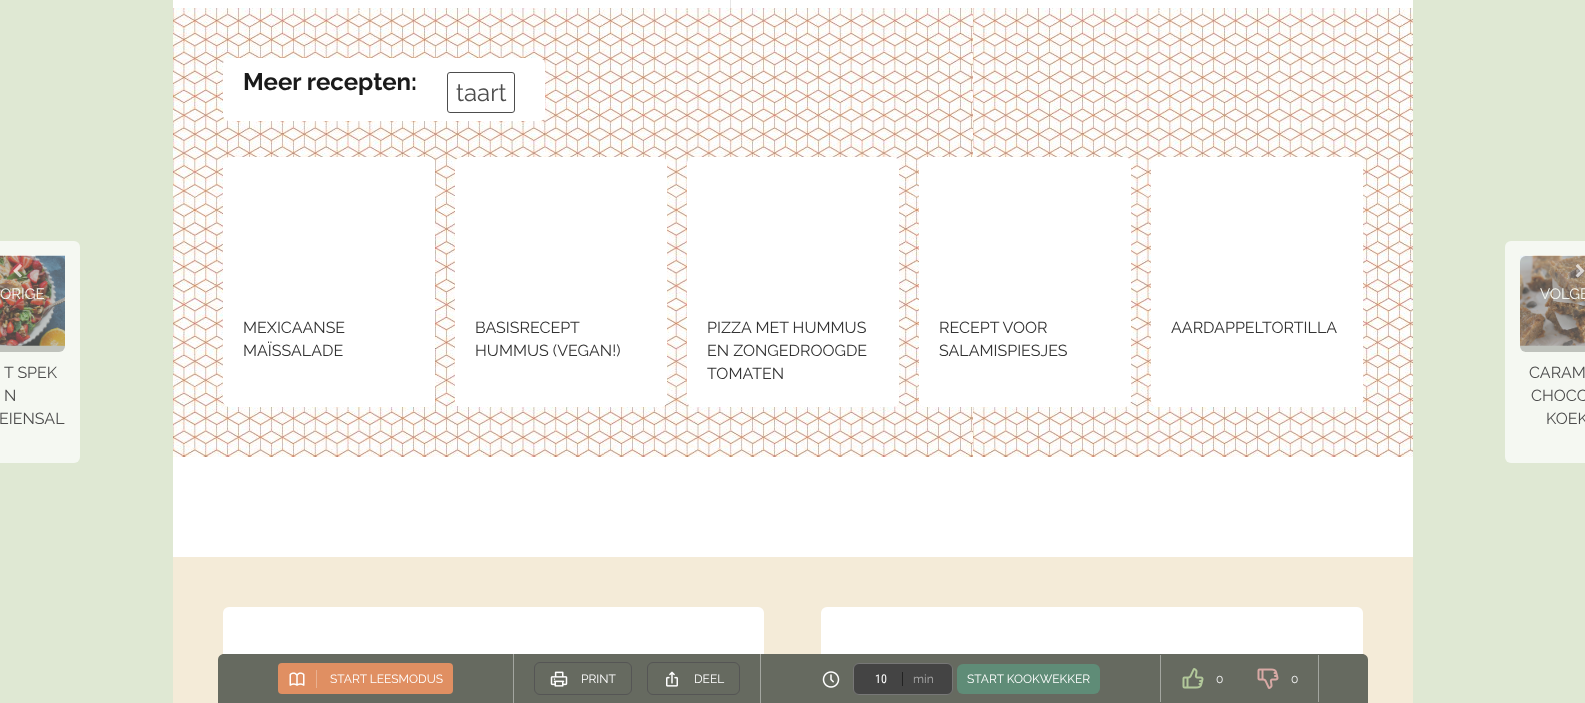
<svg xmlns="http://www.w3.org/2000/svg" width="1585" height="703">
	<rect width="100%" height="100%" fill="#DFE8D3" />
	<rect x="173" y="0" width="1240" height="8" fill="#FFFFFF" />
	<rect x="730" y="0" width="1" height="8" fill="#E6E6E6" />
	<rect x="-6" y="241" width="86" height="222" rx="6" fill="#F5F8F2" />
	<image x="0" y="255" width="65" height="91" href="assets/img1.png" />
	<rect x="-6" y="256" width="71" height="96" rx="6" fill="#43463F" fill-opacity="0.3" />
	<image x="13" y="264" width="9" height="14" href="assets/img2.png" />
	<text x="0" y="299" font-family="Raleway" font-size="15" fill="#F5F8F2">ORIGE</text>
	<g font-family="Raleway" font-size="16" fill="#4D4D4D">
		<text x="4" y="378">T SPEK</text>
		<text x="4" y="401">N</text>
		<text x="-1" y="424">EIENSAL</text>
	</g>
	<image x="173" y="8" width="1240" height="449" href="assets/img3.png" />
	<rect x="223" y="58" width="322" height="63" rx="6" fill="#FFFFFF" />
	<text x="243" y="90" font-family="Raleway" font-size="24" font-weight="700" fill="#1A1A1A">Meer recepten:</text>
	<rect x="447.5" y="72.5" width="67" height="40" rx="2.5" fill="none" stroke="#4D4D4D" />
	<text x="456" y="101" font-family="Raleway" font-size="24" fill="#4D4D4D">taart</text>
	<rect x="223" y="157" width="212" height="250" rx="6" fill="#FFFFFF" />
	<g font-family="Raleway" font-size="16" fill="#333333">
		<text x="243" y="333">MEXICAANSE</text>
		<text x="243" y="356">MAÏSSALADE</text>
	</g>
	<rect x="455" y="157" width="212" height="250" rx="6" fill="#FFFFFF" />
	<g font-family="Raleway" font-size="16" fill="#333333">
		<text x="475" y="333">BASISRECEPT</text>
		<text x="475" y="356">HUMMUS (VEGAN!)</text>
	</g>
	<rect x="687" y="157" width="212" height="250" rx="6" fill="#FFFFFF" />
	<g font-family="Raleway" font-size="16" fill="#333333">
		<text x="707" y="333">PIZZA MET HUMMUS</text>
		<text x="707" y="356">EN ZONGEDROOGDE</text>
		<text x="707" y="379">TOMATEN</text>
	</g>
	<rect x="919" y="157" width="212" height="250" rx="6" fill="#FFFFFF" />
	<g font-family="Raleway" font-size="16" fill="#333333">
		<text x="939" y="333">RECEPT VOOR</text>
		<text x="939" y="356">SALAMISPIESJES</text>
	</g>
	<rect x="1151" y="157" width="212" height="250" rx="6" fill="#FFFFFF" />
	<text x="1171" y="333" font-family="Raleway" font-size="16" fill="#333333">AARDAPPELTORTILLA</text>
	<rect x="1505" y="241" width="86" height="222" rx="6" fill="#F5F8F2" />
	<image x="1520" y="255" width="65" height="91" href="assets/img4.png" />
	<rect x="1520" y="256" width="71" height="96" rx="6" fill="#43463F" fill-opacity="0.3" />
	<image x="1575" y="264" width="10" height="14" href="assets/img5.png" />
	<text x="1540" y="299" font-family="Raleway" font-size="15" fill="#F5F8F2">VOLGE</text>
	<g font-family="Raleway" font-size="16" fill="#4D4D4D">
		<text x="1529" y="378">CARAM</text>
		<text x="1531" y="401">CHOCO</text>
		<text x="1546" y="424">KOEK</text>
	</g>
	<rect x="173" y="457" width="1240" height="100" fill="#FFFFFF" />
	<rect x="173" y="557" width="1240" height="146" fill="#F4EBD8" />
	<rect x="223" y="607" width="541" height="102" rx="6" fill="#FFFFFF" />
	<rect x="821" y="607" width="542" height="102" rx="6" fill="#FFFFFF" />
	<path d="M224 654H1362C1365.5 654 1368 656.5 1368 660V703H218V660C218 656.5 220.5 654 224 654Z" fill="#666A60" />
	<rect x="278" y="663" width="175" height="31" rx="4" fill="#E08F62" />
	<rect x="316" y="670" width="1" height="18" fill="#E9B191" />
	<image x="289" y="672" width="16" height="14" href="assets/img6.png" />
	<text x="330" y="683" font-family="Raleway" font-size="12" fill="#FFFFFF">START LEESMODUS</text>
	<rect x="760" y="654" width="1" height="49" fill="#A3A6A0" />
	<rect x="513" y="654" width="1" height="49" fill="#A3A6A0" />
	<rect x="534.5" y="662.5" width="97" height="32" rx="5.5" fill="none" stroke="#555555" />
	<image x="550" y="671" width="18" height="16" href="assets/img7.png" />
	<text x="581" y="683" font-family="Raleway" font-size="12" fill="#FFFFFF">PRINT</text>
	<rect x="647.5" y="662.5" width="92" height="32" rx="5.5" fill="none" stroke="#555555" />
	<image x="666" y="671" width="12" height="16" href="assets/img8.png" />
	<text x="694" y="683" font-family="Raleway" font-size="12" fill="#FFFFFF">DEEL</text>
	<image x="822" y="671" width="18" height="17" href="assets/img9.png" />
	<rect x="853.5" y="663.5" width="99" height="31" rx="5.5" fill="#444444" stroke="#777777" />
	<text x="875" y="683" font-family="Roboto Condensed" font-size="12" fill="#FFFFFF">10</text>
	<text x="913" y="683" font-family="Raleway" font-size="12" fill="#AAAAAA">min</text>
	<rect x="902" y="672" width="1" height="14" fill="#222222" />
	<rect x="957" y="664" width="143" height="30" rx="6" fill="#5F8C77" />
	<text x="967" y="683" font-family="Raleway" font-size="12" fill="#FFFFFF">START KOOKWEKKER</text>
	<rect x="1318" y="655" width="1" height="47" fill="#A3A6A0" />
	<rect x="1160" y="655" width="1" height="47" fill="#A3A6A0" />
	<image x="1182" y="668" width="22" height="21" href="assets/img10.png" />
	<text x="1216" y="683" font-family="Raleway" font-size="12" fill="#EEEEEE">0</text>
	<image x="1257" y="668" width="22" height="21" href="assets/img11.png" />
	<text x="1291" y="683" font-family="Raleway" font-size="12" fill="#EEEEEE">0</text>
</svg>
